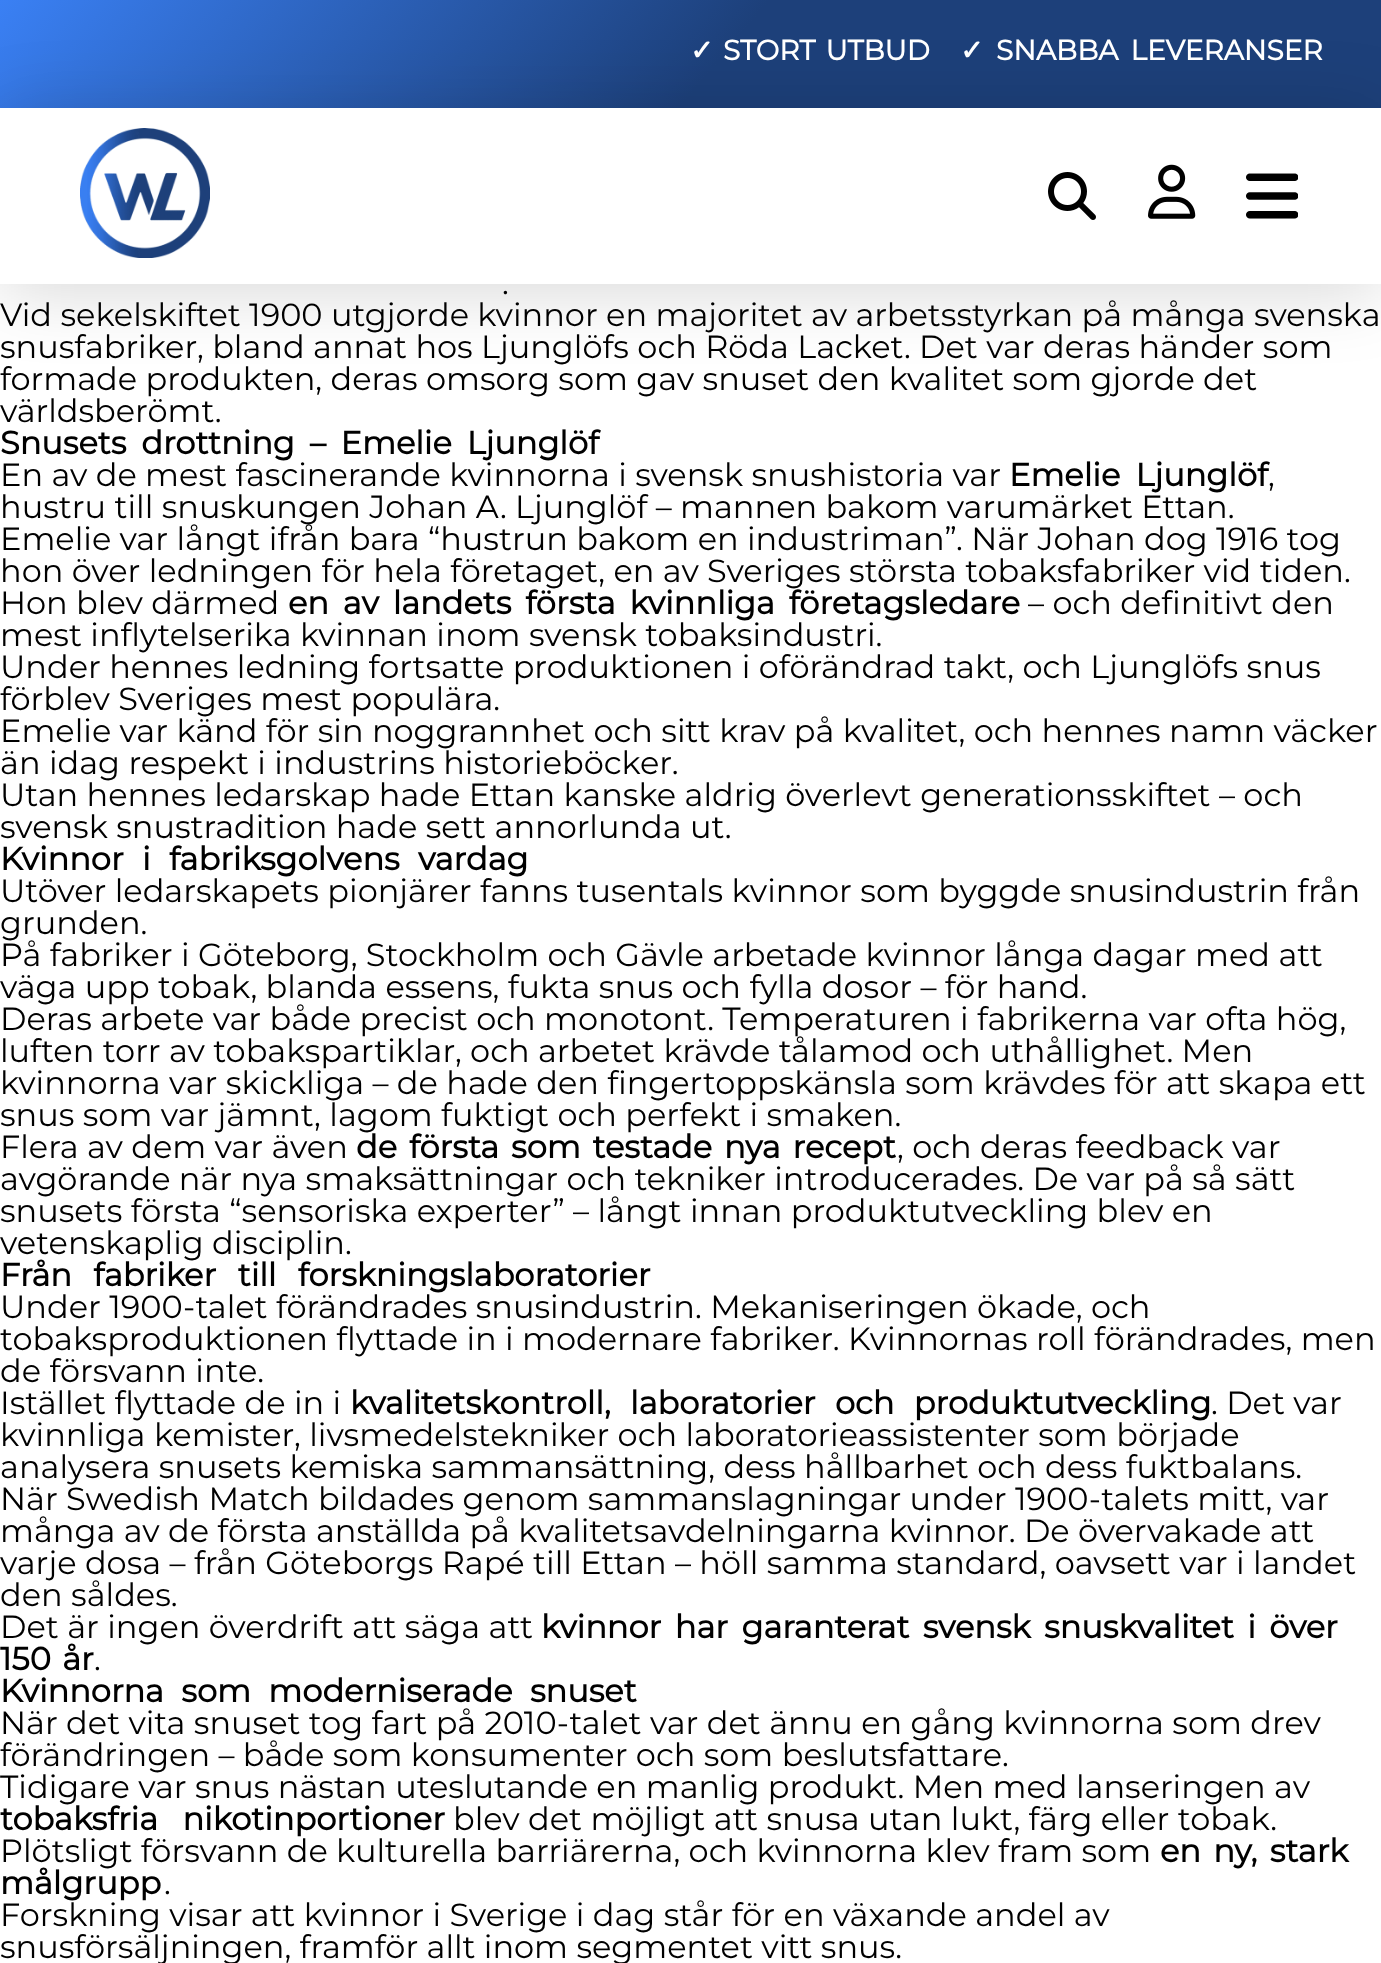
<svg xmlns="http://www.w3.org/2000/svg" width="1381" height="1963">
	<defs>
		<linearGradient id="g1" gradientUnits="userSpaceOnUse" x1="239" y1="-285" x2="1143" y2="473"><stop offset="0" stop-color="#3A80F4" /><stop offset="0.5" stop-color="#1D407A" /><stop offset="1" stop-color="#1D407A" /></linearGradient>
	</defs>
	<rect width="100%" height="100%" fill="#FFFFFF" />
	<rect x="0" y="0" width="1381" height="108" fill="url(#g1)" />
	<rect x="0" y="114" width="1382" height="176" fill="#000000" fill-opacity="0.16" filter="blur(36px)" />
	<rect x="0" y="108" width="1381" height="176" fill="#FFFFFF" />
	<image x="80" y="128" width="130" height="130" href="assets/img1.png" />
	<image x="1048" y="172" width="48" height="48" href="assets/img2.png" />
	<image x="1148" y="164" width="48" height="55" href="assets/img3.png" />
	<image x="1246" y="173" width="52" height="46" href="assets/img4.png" />
	<text x="690" y="60" font-family="DejaVu Sans" font-size="28" font-weight="700" fill="#FFFFFF">✓</text>
	<text x="723" y="60" word-spacing="3" font-family="Montserrat" font-size="28" font-weight="700" fill="#FFFFFF">STORT UTBUD</text>
	<text x="960" y="60" font-family="DejaVu Sans" font-size="28" font-weight="700" fill="#FFFFFF">✓</text>
	<text x="996" y="60" word-spacing="5" font-family="Montserrat" font-size="28" font-weight="700" fill="#FFFFFF">SNABBA LEVERANSER</text>
	<g font-family="Montserrat" font-size="32" fill="#000000">
		<text x="502" y="294">.</text>
		<text x="0" y="326">Vid sekelskiftet 1900 utgjorde kvinnor en majoritet av arbetsstyrkan på många svenska</text>
		<text x="0" y="358">snusfabriker, bland annat hos Ljunglöfs och Röda Lacket. Det var deras händer som</text>
		<text x="0" y="390">formade produkten, deras omsorg som gav snuset den kvalitet som gjorde det</text>
		<text x="0" y="422">världsberömt.</text>
	</g>
	<text x="0" y="454" word-spacing="6.5" font-family="Montserrat" font-size="32" font-weight="700" fill="#000000">Snusets drottning – Emelie Ljunglöf</text>
	<text x="0" y="486" font-family="Montserrat" font-size="32" fill="#000000">En av de mest fascinerande kvinnorna i svensk snushistoria var</text>
	<text x="1009" y="486" word-spacing="7" font-family="Montserrat" font-size="32" font-weight="700" fill="#000000">Emelie Ljunglöf</text>
	<g font-family="Montserrat" font-size="32" fill="#000000">
		<text x="1268" y="486">,</text>
		<text x="0" y="518">hustru till snuskungen Johan A. Ljunglöf – mannen bakom varumärket Ettan.</text>
		<text x="0" y="550">Emelie var långt ifrån bara “hustrun bakom en industriman”. När Johan dog 1916 tog</text>
		<text x="0" y="582">hon över ledningen för hela företaget, en av Sveriges största tobaksfabriker vid tiden.</text>
		<text x="0" y="614">Hon blev därmed</text>
	</g>
	<text x="288" y="614" word-spacing="5.5" font-family="Montserrat" font-size="32" font-weight="700" fill="#000000">en av landets första kvinnliga företagsledare</text>
	<g font-family="Montserrat" font-size="32" fill="#000000">
		<text x="1028" y="614">– och definitivt den</text>
		<text x="0" y="646">mest inflytelserika kvinnan inom svensk tobaksindustri.</text>
		<text x="0" y="678">Under hennes ledning fortsatte produktionen i oförändrad takt, och Ljunglöfs snus</text>
		<text x="0" y="710">förblev Sveriges mest populära.</text>
		<text x="0" y="742">Emelie var känd för sin noggrannhet och sitt krav på kvalitet, och hennes namn väcker</text>
		<text x="0" y="774">än idag respekt i industrins historieböcker.</text>
		<text x="0" y="806">Utan hennes ledarskap hade Ettan kanske aldrig överlevt generationsskiftet – och</text>
		<text x="0" y="838">svensk snustradition hade sett annorlunda ut.</text>
	</g>
	<text x="0" y="870" word-spacing="10" font-family="Montserrat" font-size="32" font-weight="700" fill="#000000">Kvinnor i fabriksgolvens vardag</text>
	<g font-family="Montserrat" font-size="32" fill="#000000">
		<text x="0" y="902">Utöver ledarskapets pionjärer fanns tusentals kvinnor som byggde snusindustrin från</text>
		<text x="0" y="934">grunden.</text>
		<text x="0" y="966">På fabriker i Göteborg, Stockholm och Gävle arbetade kvinnor långa dagar med att</text>
		<text x="0" y="998">väga upp tobak, blanda essens, fukta snus och fylla dosor – för hand.</text>
		<text x="0" y="1030">Deras arbete var både precist och monotont. Temperaturen i fabrikerna var ofta hög,</text>
		<text x="0" y="1062">luften torr av tobakspartiklar, och arbetet krävde tålamod och uthållighet. Men</text>
		<text x="0" y="1094">kvinnorna var skickliga – de hade den fingertoppskänsla som krävdes för att skapa ett</text>
		<text x="0" y="1126">snus som var jämnt, lagom fuktigt och perfekt i smaken.</text>
		<text x="0" y="1158">Flera av dem var även</text>
	</g>
	<text x="356" y="1158" word-spacing="3.5" font-family="Montserrat" font-size="32" font-weight="700" fill="#000000">de första som testade nya recept</text>
	<g font-family="Montserrat" font-size="32" fill="#000000">
		<text x="897" y="1158">, och deras feedback var</text>
		<text x="0" y="1190">avgörande när nya smaksättningar och tekniker introducerades. De var på så sätt</text>
		<text x="0" y="1222">snusets första “sensoriska experter” – långt innan produktutveckling blev en</text>
		<text x="0" y="1254">vetenskaplig disciplin.</text>
	</g>
	<text x="0" y="1286" word-spacing="13" font-family="Montserrat" font-size="32" font-weight="700" fill="#000000">Från fabriker till forskningslaboratorier</text>
	<g font-family="Montserrat" font-size="32" fill="#000000">
		<text x="0" y="1318">Under 1900-talet förändrades snusindustrin. Mekaniseringen ökade, och</text>
		<text x="0" y="1350">tobaksproduktionen flyttade in i modernare fabriker. Kvinnornas roll förändrades, men</text>
		<text x="0" y="1382">de försvann inte.</text>
		<text x="0" y="1414">Istället flyttade de in i</text>
	</g>
	<text x="350" y="1414" word-spacing="11" font-family="Montserrat" font-size="32" font-weight="700" fill="#000000">kvalitetskontroll, laboratorier och produktutveckling</text>
	<g font-family="Montserrat" font-size="32" fill="#000000">
		<text x="1211" y="1414">. Det var</text>
		<text x="0" y="1446">kvinnliga kemister, livsmedelstekniker och laboratorieassistenter som började</text>
		<text x="0" y="1478">analysera snusets kemiska sammansättning, dess hållbarhet och dess fuktbalans.</text>
		<text x="0" y="1510">När Swedish Match bildades genom sammanslagningar under 1900-talets mitt, var</text>
		<text x="0" y="1542">många av de första anställda på kvalitetsavdelningarna kvinnor. De övervakade att</text>
		<text x="0" y="1574">varje dosa – från Göteborgs Rapé till Ettan – höll samma standard, oavsett var i landet</text>
		<text x="0" y="1606">den såldes.</text>
		<text x="0" y="1638">Det är ingen överdrift att säga att</text>
	</g>
	<g font-family="Montserrat" font-size="32" font-weight="700" fill="#000000">
		<text x="541" y="1638" word-spacing="5">kvinnor har garanterat svensk snuskvalitet i över</text>
		<text x="0" y="1670" word-spacing="3">150 år</text>
	</g>
	<text x="94" y="1670" font-family="Montserrat" font-size="32" fill="#000000">.</text>
	<text x="0" y="1702" word-spacing="9" font-family="Montserrat" font-size="32" font-weight="700" fill="#000000">Kvinnorna som moderniserade snuset</text>
	<g font-family="Montserrat" font-size="32" fill="#000000">
		<text x="0" y="1734">När det vita snuset tog fart på 2010-talet var det ännu en gång kvinnorna som drev</text>
		<text x="0" y="1766">förändringen – både som konsumenter och som beslutsfattare.</text>
		<text x="0" y="1798">Tidigare var snus nästan uteslutande en manlig produkt. Men med lanseringen av</text>
	</g>
	<text x="0" y="1830" word-spacing="16" font-family="Montserrat" font-size="32" font-weight="700" fill="#000000">tobaksfria nikotinportioner</text>
	<g font-family="Montserrat" font-size="32" fill="#000000">
		<text x="453" y="1830">blev det möjligt att snusa utan lukt, färg eller tobak.</text>
		<text x="0" y="1862">Plötsligt försvann de kulturella barriärerna, och kvinnorna klev fram som</text>
	</g>
	<g font-family="Montserrat" font-size="32" font-weight="700" fill="#000000">
		<text x="1160" y="1862" word-spacing="4">en ny, stark</text>
		<text x="0" y="1894">målgrupp</text>
	</g>
	<g font-family="Montserrat" font-size="32" fill="#000000">
		<text x="164" y="1894">.</text>
		<text x="0" y="1926">Forskning visar att kvinnor i Sverige i dag står för en växande andel av</text>
		<text x="0" y="1958">snusförsäljningen, framför allt inom segmentet vitt snus.</text>
	</g>
</svg>
